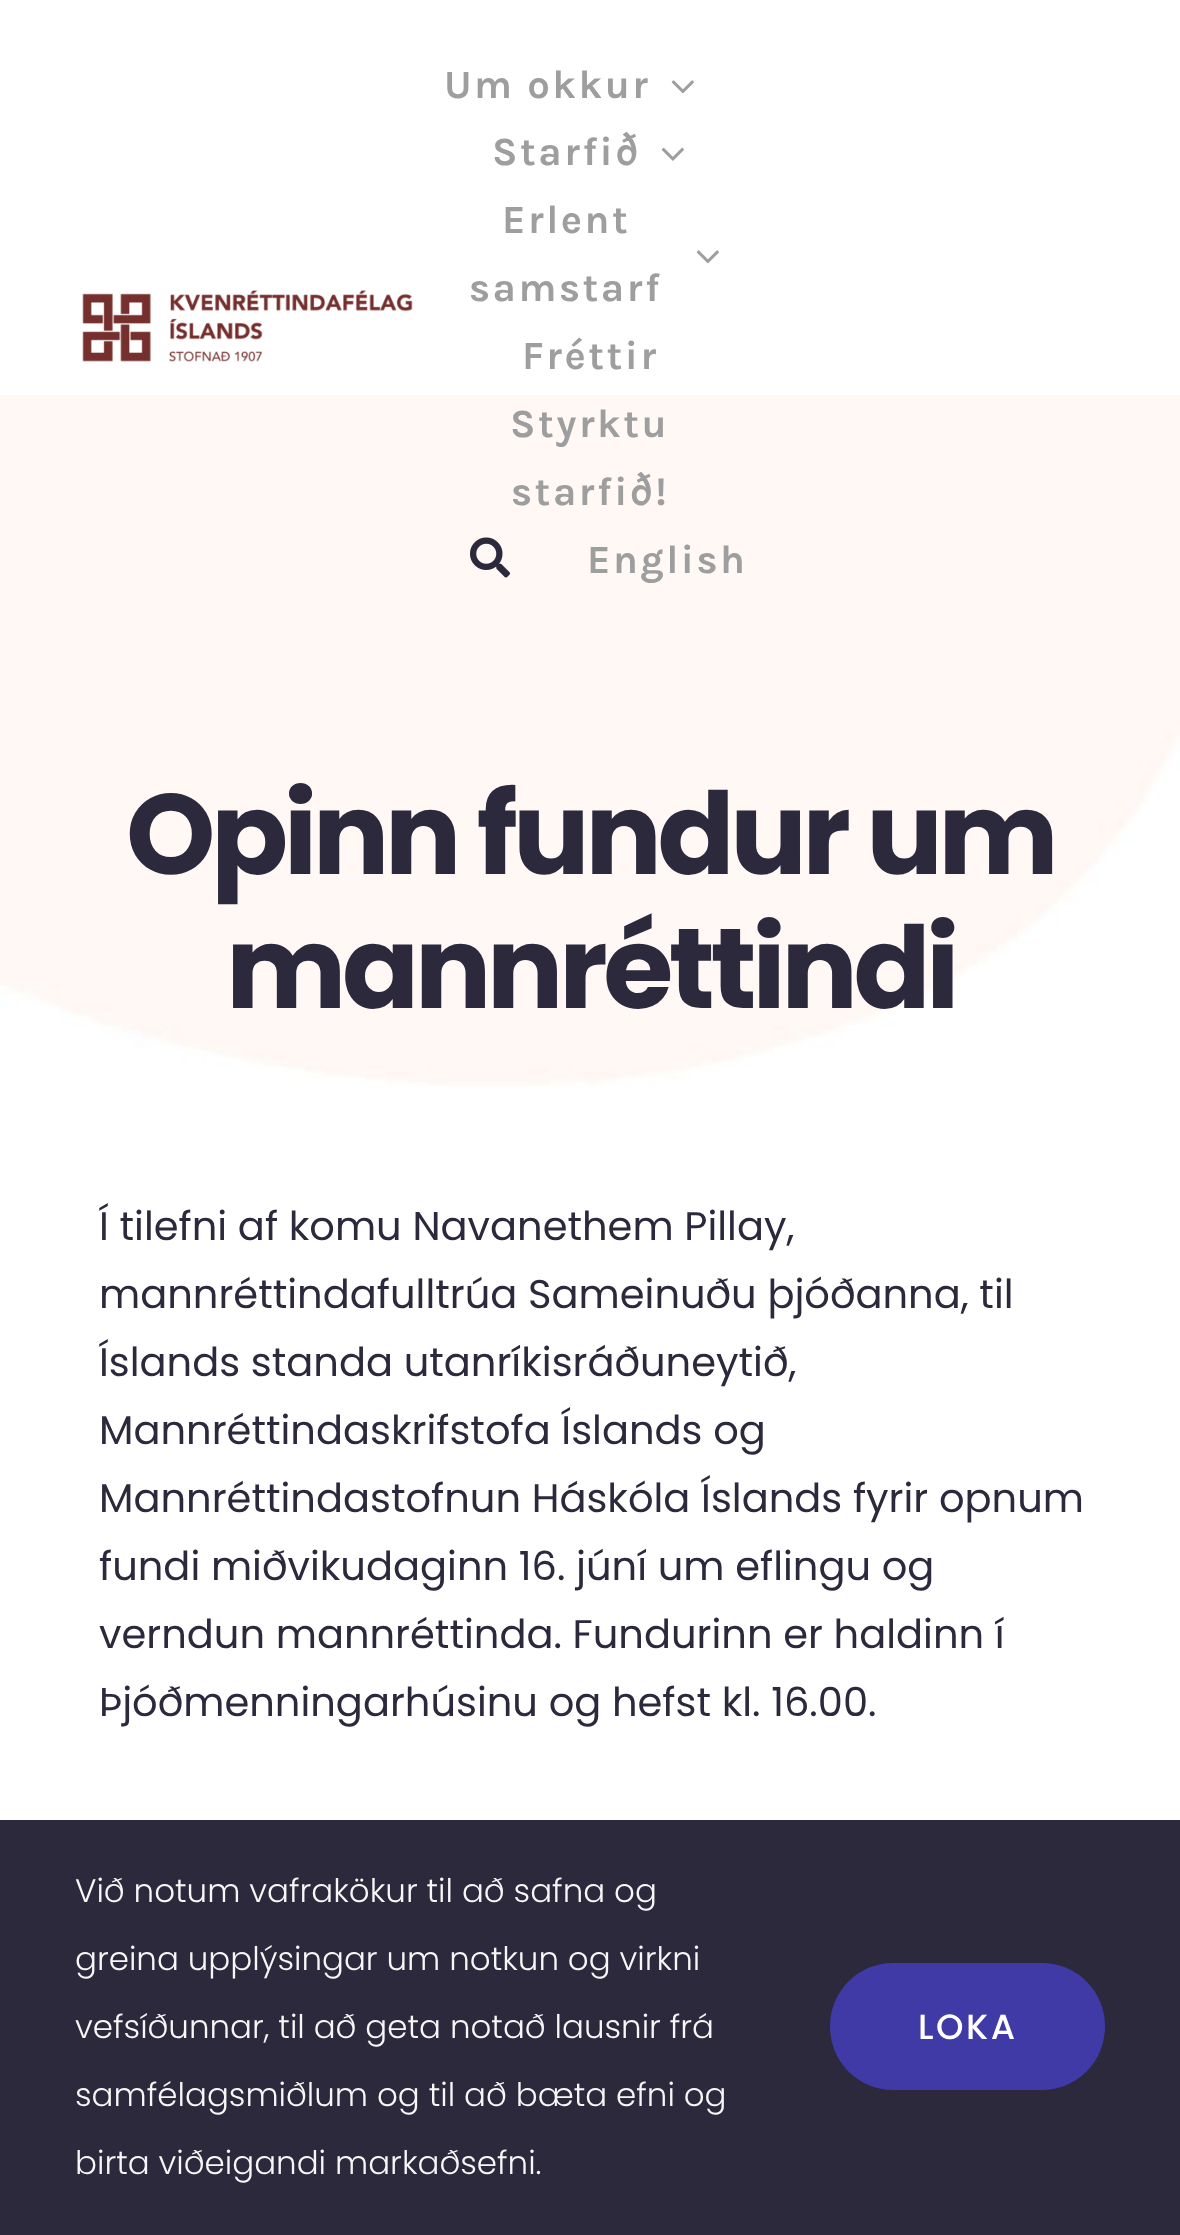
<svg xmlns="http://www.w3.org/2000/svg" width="1180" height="2235">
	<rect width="100%" height="100%" fill="#FFFFFF" />
	<image x="82" y="290" width="331" height="72" href="assets/img1.png" />
	<text x="444" y="98" font-family="Karla" font-size="40" font-weight="700" letter-spacing="2.5" fill="#9E9E9E">Um okkur</text>
	<image x="671" y="80" width="23" height="14" href="assets/img2.png" />
	<text x="492" y="165" font-family="Karla" font-size="40" font-weight="700" letter-spacing="2.5" fill="#9E9E9E">Starfið</text>
	<image x="661" y="147" width="23" height="14" href="assets/img3.png" />
	<g font-family="Karla" font-size="40" font-weight="700" letter-spacing="2.5" fill="#9E9E9E">
		<text x="502" y="233">Erlent</text>
		<text x="469" y="301">samstarf</text>
	</g>
	<image x="696" y="250" width="23" height="14" href="assets/img2.png" />
	<text x="522" y="369" font-family="Karla" font-size="40" font-weight="700" letter-spacing="2.5" fill="#9E9E9E">Fréttir</text>
	<image x="0" y="395" width="1180" height="692" href="assets/img5.png" />
	<g font-family="Karla" font-size="40" font-weight="700" letter-spacing="2.5" fill="#9E9E9E">
		<text x="510" y="437">Styrktu</text>
		<text x="511" y="505">starfið!</text>
	</g>
	<image x="470" y="537" width="40" height="41" href="assets/img4.png" />
	<text x="587" y="573" font-family="Karla" font-size="40" font-weight="700" letter-spacing="2.5" fill="#9E9E9E">English</text>
	<g font-family="Poppins" font-size="113.75" font-weight="700" letter-spacing="-4.5" fill="#2C293D">
		<text x="126" y="874">Opinn fundur um</text>
		<text x="226" y="1008">mannréttindi</text>
	</g>
	<g font-family="Poppins" font-size="40" fill="#2C293D">
		<text x="99" y="1240">Í tilefni af komu Navanethem Pillay,</text>
		<text x="99" y="1308">mannréttindafulltrúa Sameinuðu þjóðanna, til</text>
		<text x="99" y="1376">Íslands standa utanríkisráðuneytið,</text>
		<text x="99" y="1444">Mannréttindaskrifstofa Íslands og</text>
		<text x="99" y="1512">Mannréttindastofnun Háskóla Íslands fyrir opnum</text>
		<text x="99" y="1580">fundi miðvikudaginn 16. júní um eflingu og</text>
		<text x="99" y="1648">verndun mannréttinda. Fundurinn er haldinn í</text>
		<text x="99" y="1716">Þjóðmenningarhúsinu og hefst kl. 16.00.</text>
	</g>
	<rect x="0" y="1820" width="1180" height="415" fill="#2C293D" />
	<g font-family="Poppins" font-size="32.5" font-weight="300" fill="#F7F7F7">
		<text x="75" y="1902">Við notum vafrakökur til að safna og</text>
		<text x="75" y="1970">greina upplýsingar um notkun og virkni</text>
		<text x="75" y="2038">vefsíðunnar, til að geta notað lausnir frá</text>
		<text x="75" y="2106">samfélagsmiðlum og til að bæta efni og</text>
		<text x="75" y="2174">birta viðeigandi markaðsefni.</text>
	</g>
	<rect x="830" y="1963" width="275" height="127" rx="63" fill="#403AA6" />
	<text x="918" y="2039" font-family="Poppins" font-size="35" font-weight="500" letter-spacing="2.5" fill="#FFFFFF">LOKA</text>
</svg>
